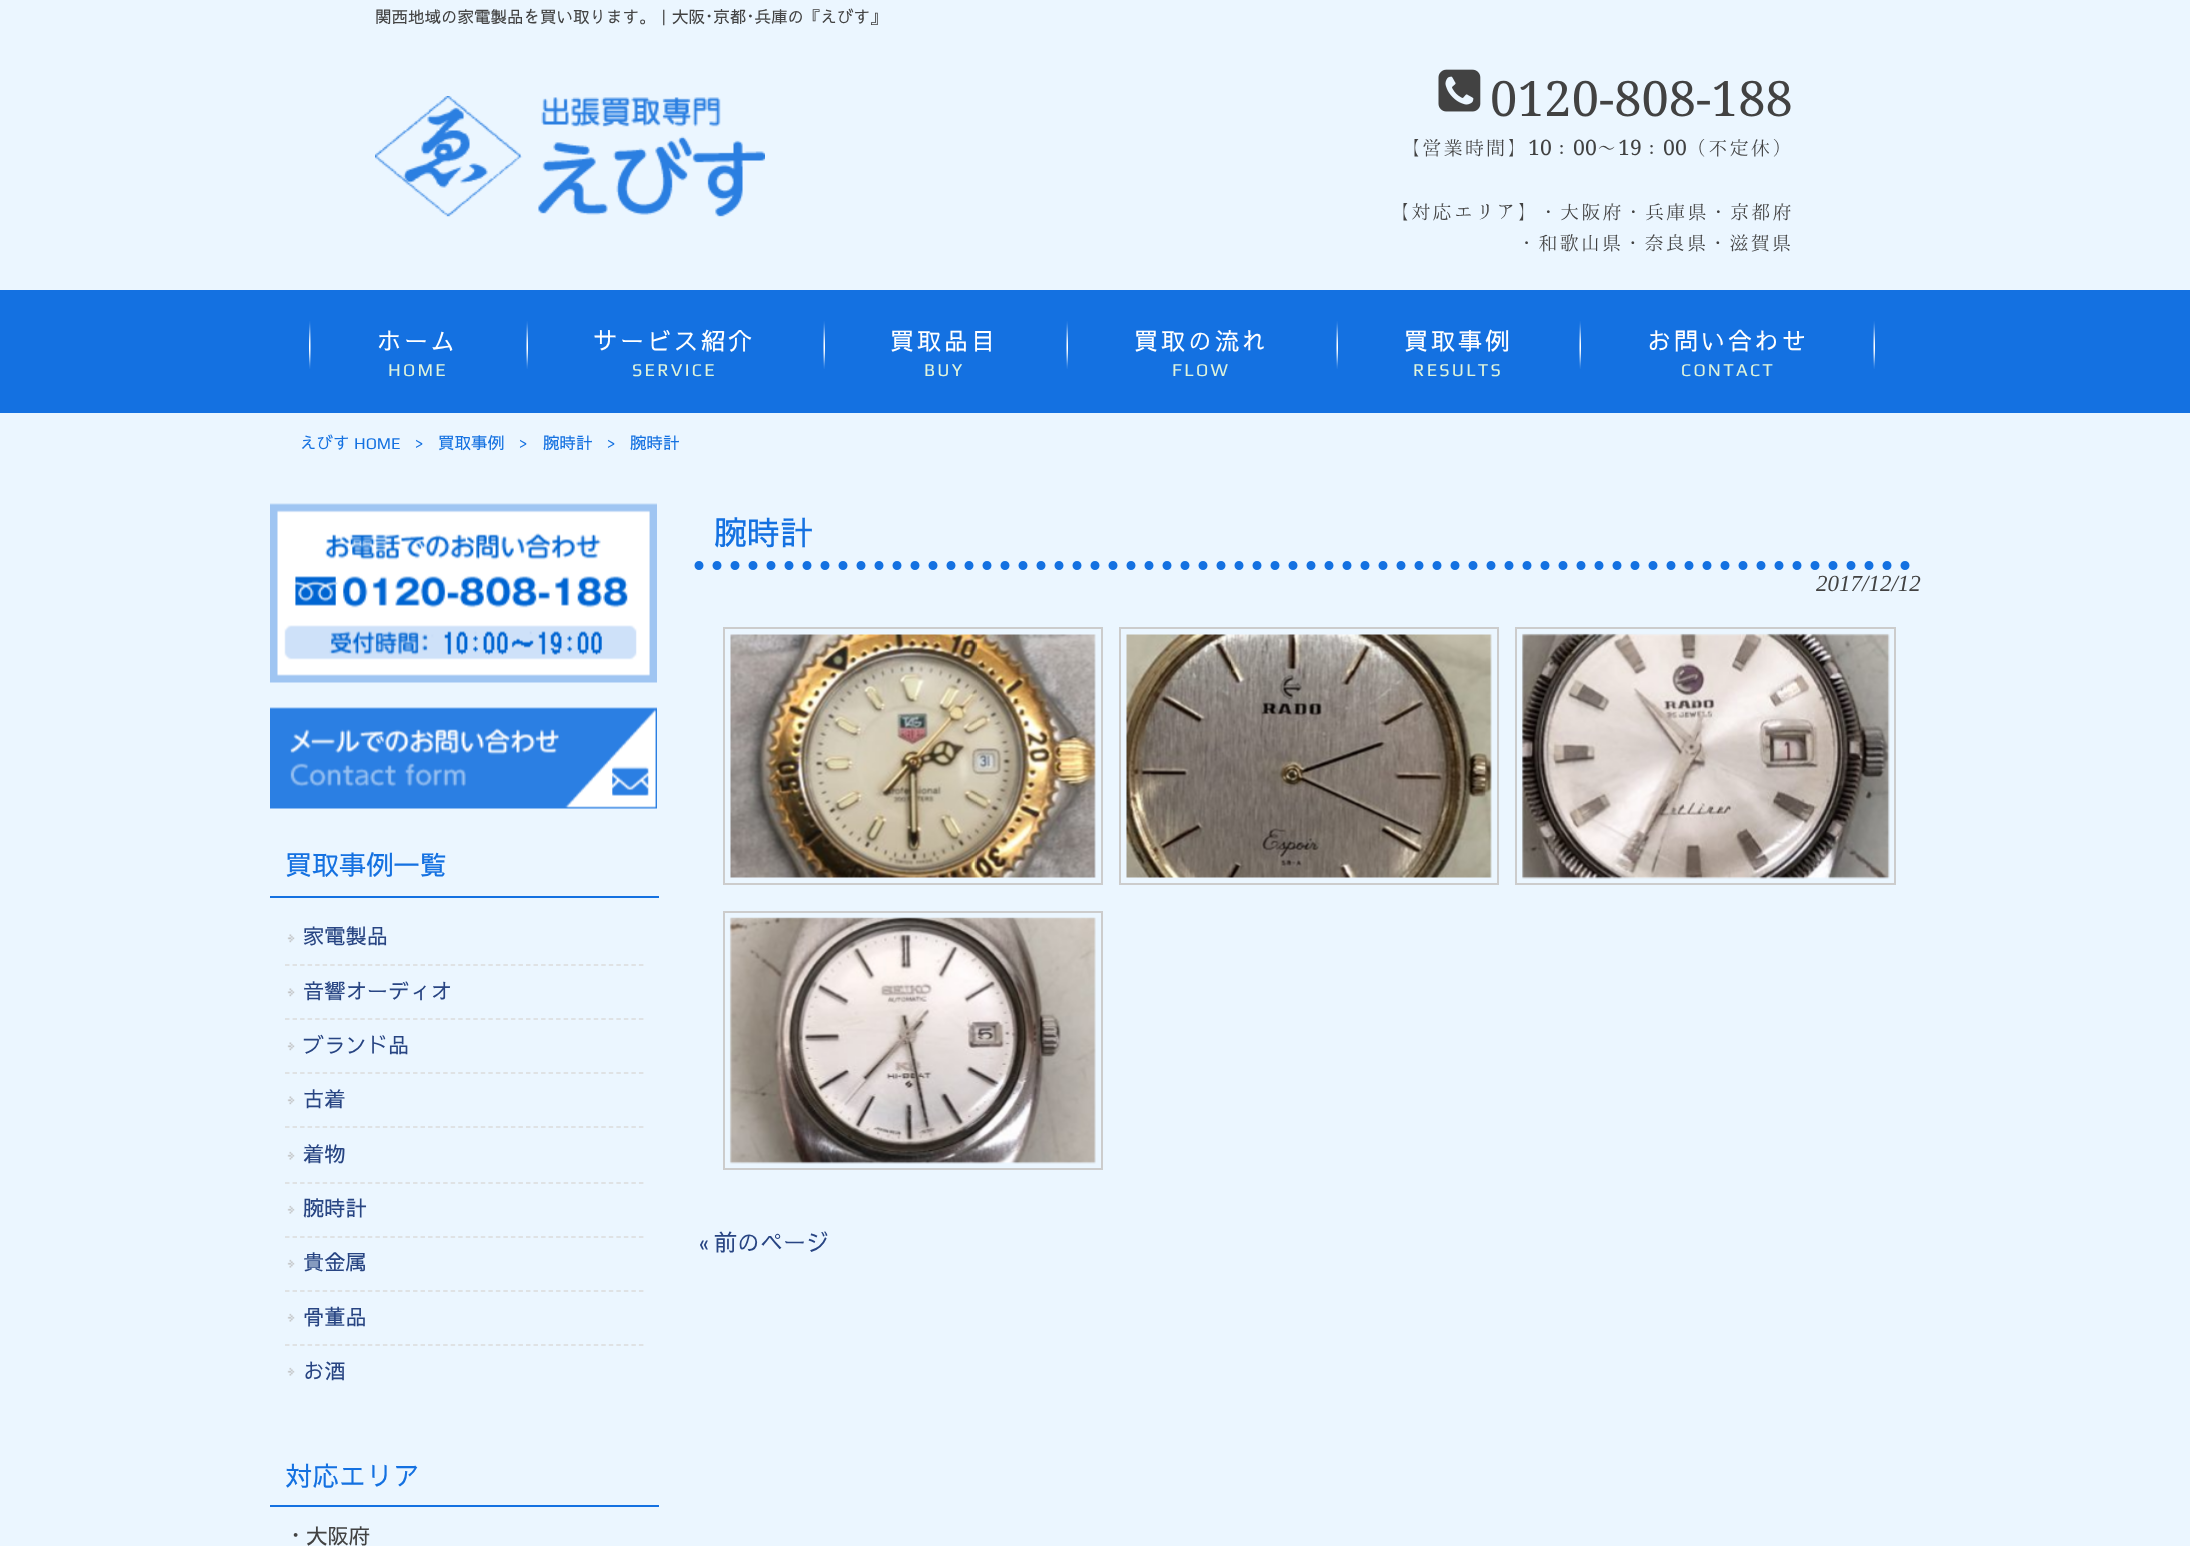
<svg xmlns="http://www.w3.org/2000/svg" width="2190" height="1546">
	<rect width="100%" height="100%" fill="#EBF6FF" />
	<text x="375" y="23" font-family="Sawarabi Gothic" font-size="16.5" fill="#424242">関西地域の家電製品を買い取ります。｜大阪･京都･兵庫の『えびす』</text>
	<image x="375" y="96" width="390" height="121" href="assets/img1.png" />
	<image x="1438" y="69" width="43" height="43" href="assets/img2.png" />
	<text x="1490" y="116" font-family="Droid Serif" font-size="48.75" fill="#424242">0120-808-188</text>
	<text x="1401" y="155" font-family="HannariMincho" font-size="21.25" fill="#424242">【営業時間】</text>
	<text x="1528" y="155" font-family="Droid Serif" font-size="21.25" fill="#424242">10</text>
	<text x="1552" y="155" font-family="HannariMincho" font-size="21.25" fill="#424242">：</text>
	<text x="1573" y="155" font-family="Droid Serif" font-size="21.25" fill="#424242">00</text>
	<text x="1597" y="155" font-family="HannariMincho" font-size="21.25" fill="#424242">～</text>
	<text x="1618" y="155" font-family="Droid Serif" font-size="21.25" fill="#424242">19</text>
	<text x="1642" y="155" font-family="HannariMincho" font-size="21.25" fill="#424242">：</text>
	<text x="1663" y="155" font-family="Droid Serif" font-size="21.25" fill="#424242">00</text>
	<g font-family="HannariMincho" font-size="21.25" fill="#424242">
		<text x="1687" y="155">（不定休）</text>
		<text x="1390" y="219">【対応エリア】・大阪府・兵庫県・京都府</text>
		<text x="1517" y="250">・和歌山県・奈良県・滋賀県</text>
	</g>
	<rect x="0" y="290" width="2190" height="123" fill="#1471E1" />
	<image x="309" y="321" width="2" height="48" href="assets/img3.png" />
	<text x="377" y="350" font-family="Sawarabi Gothic" font-size="24" letter-spacing="3" fill="#FFFFFF">ホーム</text>
	<text x="388" y="376" font-family="Play" font-size="18" letter-spacing="2.25" fill="#DFF4DC">HOME</text>
	<image x="526" y="321" width="2" height="48" href="assets/img4.png" />
	<text x="593" y="350" font-family="Sawarabi Gothic" font-size="24" letter-spacing="3" fill="#FFFFFF">サービス紹介</text>
	<text x="632" y="376" font-family="Play" font-size="18" letter-spacing="2.25" fill="#DFF4DC">SERVICE</text>
	<image x="823" y="321" width="2" height="48" href="assets/img4.png" />
	<text x="890" y="350" font-family="Sawarabi Gothic" font-size="24" letter-spacing="3" fill="#FFFFFF">買取品目</text>
	<text x="924" y="376" font-family="Play" font-size="18" letter-spacing="2.25" fill="#DFF4DC">BUY</text>
	<image x="1066" y="321" width="2" height="48" href="assets/img4.png" />
	<text x="1134" y="350" font-family="Sawarabi Gothic" font-size="24" letter-spacing="3" fill="#FFFFFF">買取の流れ</text>
	<text x="1172" y="376" font-family="Play" font-size="18" letter-spacing="2.25" fill="#DFF4DC">FLOW</text>
	<image x="1336" y="321" width="2" height="48" href="assets/img4.png" />
	<text x="1404" y="350" font-family="Sawarabi Gothic" font-size="24" letter-spacing="3" fill="#FFFFFF">買取事例</text>
	<text x="1413" y="376" font-family="Play" font-size="18" letter-spacing="2.25" fill="#DFF4DC">RESULTS</text>
	<image x="1579" y="321" width="2" height="48" href="assets/img4.png" />
	<text x="1647" y="350" font-family="Sawarabi Gothic" font-size="24" letter-spacing="3" fill="#FFFFFF">お問い合わせ</text>
	<text x="1681" y="376" font-family="Play" font-size="18" letter-spacing="2.25" fill="#DFF4DC">CONTACT</text>
	<image x="1873" y="321" width="2" height="48" href="assets/img4.png" />
	<text x="300" y="449" font-family="Sawarabi Gothic" font-size="16.5" fill="#1471E1">えびす</text>
	<g font-family="Play" font-size="16.5" fill="#1471E1">
		<text x="354" y="449">HOME</text>
		<text x="415" y="449">&gt;</text>
	</g>
	<text x="438" y="449" font-family="Sawarabi Gothic" font-size="16.5" fill="#1471E1">買取事例</text>
	<text x="519" y="449" font-family="Play" font-size="16.5" fill="#1471E1">&gt;</text>
	<text x="543" y="449" font-family="Sawarabi Gothic" font-size="16.5" fill="#1471E1">腕時計</text>
	<text x="607" y="449" font-family="Play" font-size="16.5" fill="#1471E1">&gt;</text>
	<text x="630" y="449" font-family="Sawarabi Gothic" font-size="16.5" fill="#1471E1">腕時計</text>
	<image x="270" y="503" width="387" height="180" href="assets/img5.png" />
	<image x="270" y="707" width="387" height="102" href="assets/img6.png" />
	<rect x="270" y="896" width="389" height="2" fill="#1471E1" />
	<text x="285" y="875" font-family="Sawarabi Gothic" font-size="27" fill="#1471E1">買取事例一覧</text>
	<image x="287" y="934" width="8" height="9" href="assets/img7.png" />
	<path d="M285 965H643.5" fill="none" stroke="#DCDCDC" stroke-width="1.5" stroke-dasharray="4.5 3.03" />
	<text x="303" y="944" font-family="Sawarabi Gothic" font-size="21.25" fill="#284583">家電製品</text>
	<image x="287" y="988" width="8" height="9" href="assets/img7.png" />
	<path d="M285 1019H643.5" fill="none" stroke="#DCDCDC" stroke-width="1.5" stroke-dasharray="4.5 3.03" />
	<text x="303" y="999" font-family="Sawarabi Gothic" font-size="21.25" fill="#284583">音響オーディオ</text>
	<image x="287" y="1042" width="8" height="9" href="assets/img7.png" />
	<path d="M285 1073H643.5" fill="none" stroke="#DCDCDC" stroke-width="1.5" stroke-dasharray="4.5 3.03" />
	<text x="303" y="1053" font-family="Sawarabi Gothic" font-size="21.25" fill="#284583">ブランド品</text>
	<image x="287" y="1096" width="8" height="9" href="assets/img7.png" />
	<path d="M285 1127H643.5" fill="none" stroke="#DCDCDC" stroke-width="1.5" stroke-dasharray="4.5 3.03" />
	<text x="303" y="1107" font-family="Sawarabi Gothic" font-size="21.25" fill="#284583">古着</text>
	<image x="287" y="1151" width="8" height="9" href="assets/img8.png" />
	<path d="M285 1183H643.5" fill="none" stroke="#DCDCDC" stroke-width="1.5" stroke-dasharray="4.5 3.03" />
	<text x="303" y="1162" font-family="Sawarabi Gothic" font-size="21.25" fill="#284583">着物</text>
	<image x="287" y="1205" width="8" height="9" href="assets/img8.png" />
	<path d="M285 1237H643.5" fill="none" stroke="#DCDCDC" stroke-width="1.5" stroke-dasharray="4.5 3.03" />
	<text x="303" y="1216" font-family="Sawarabi Gothic" font-size="21.25" fill="#284583">腕時計</text>
	<image x="287" y="1259" width="8" height="9" href="assets/img8.png" />
	<path d="M285 1291H643.5" fill="none" stroke="#DCDCDC" stroke-width="1.5" stroke-dasharray="4.5 3.03" />
	<text x="303" y="1270" font-family="Sawarabi Gothic" font-size="21.25" fill="#284583">貴金属</text>
	<image x="287" y="1313" width="8" height="9" href="assets/img8.png" />
	<path d="M285 1345H643.5" fill="none" stroke="#DCDCDC" stroke-width="1.5" stroke-dasharray="4.5 3.03" />
	<text x="303" y="1325" font-family="Sawarabi Gothic" font-size="21.25" fill="#284583">骨董品</text>
	<image x="287" y="1367" width="8" height="9" href="assets/img8.png" />
	<text x="303" y="1379" font-family="Sawarabi Gothic" font-size="21.25" fill="#284583">お酒</text>
	<rect x="270" y="1505" width="389" height="2" fill="#1471E1" />
	<text x="285" y="1486" font-family="Sawarabi Gothic" font-size="27" fill="#1471E1">対応エリア</text>
	<text x="285" y="1544" font-family="Sawarabi Gothic" font-size="21.25" fill="#424242">・大阪府</text>
	<path d="M699 565.5H1920" fill="none" stroke="#1471E1" stroke-width="9" stroke-linecap="round" stroke-dasharray="0 18" />
	<text x="714" y="545" font-family="Sawarabi Gothic" font-size="33" fill="#1471E1">腕時計</text>
	<text x="1816" y="591" font-family="Liberation Serif" font-size="23" font-style="italic" fill="#424242">2017/12/12</text>
	<rect x="724" y="628" width="378" height="256" fill="none" stroke="#CCCCCC" stroke-width="2" />
	<image x="730" y="634" width="366" height="244" href="assets/img9.png" />
	<rect x="1120" y="628" width="378" height="256" fill="none" stroke="#CCCCCC" stroke-width="2" />
	<image x="1126" y="634" width="366" height="244" href="assets/img10.png" />
	<rect x="1516" y="628" width="379" height="256" fill="none" stroke="#CCCCCC" stroke-width="2" />
	<image x="1522" y="633" width="368" height="246" href="assets/img11.png" />
	<rect x="724" y="912" width="378" height="257" fill="none" stroke="#CCCCCC" stroke-width="2" />
	<image x="729" y="917" width="367" height="247" href="assets/img12.png" />
	<text x="699" y="1251" font-family="Play" font-size="23" fill="#284583">«</text>
	<text x="714" y="1251" font-family="Sawarabi Gothic" font-size="23" fill="#284583">前のページ</text>
</svg>
